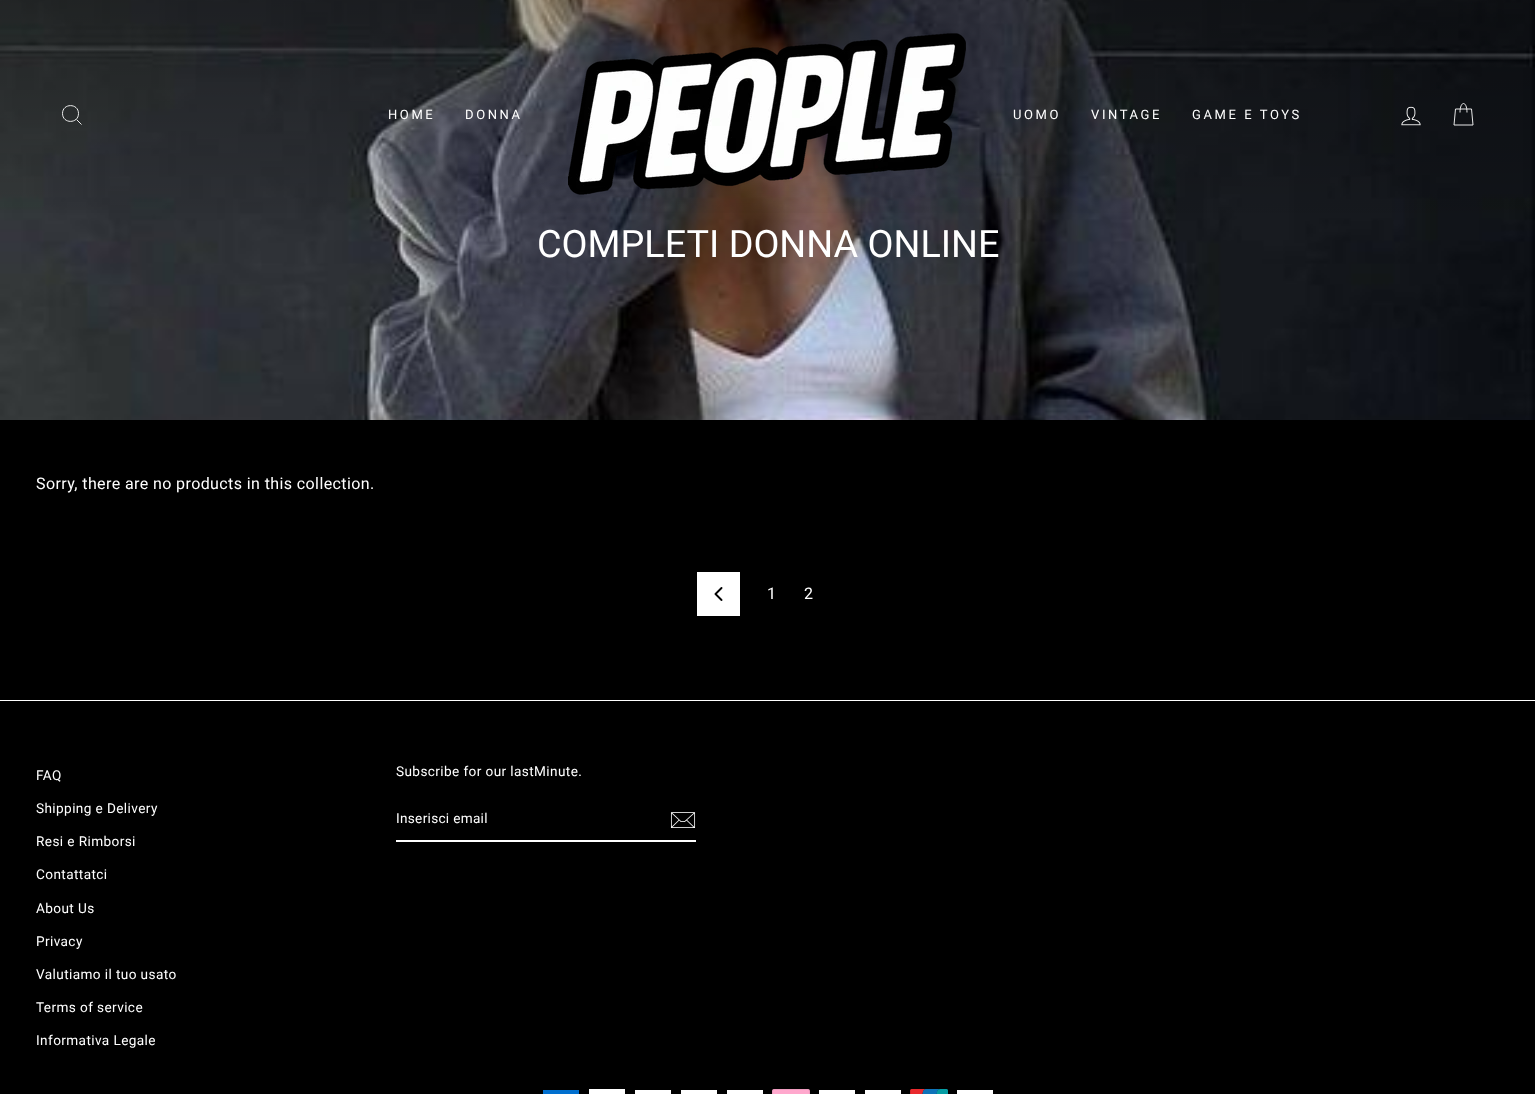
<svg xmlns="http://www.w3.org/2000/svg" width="1535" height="1094">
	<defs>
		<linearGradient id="g1" gradientUnits="userSpaceOnUse" x1="768" y1="0" x2="768" y2="230"><stop offset="0" stop-color="#000000" stop-opacity="0.3" /><stop offset="1" stop-color="#000000" stop-opacity="0" /></linearGradient>
	</defs>
	<rect width="100%" height="100%" fill="#000000" />
	<image x="0" y="0" width="1535" height="420" href="assets/img3.png" />
	<rect x="0" y="0" width="1535" height="213" fill="url(#g1)" />
	<path d="M78.5 113.5C78.5 124 62.5 124 62.5 113.5C62.5 103 78.5 103 78.5 113.5ZM81.5 124.5L76.5 119.5" fill="none" stroke="#FFFFFF" stroke-width="0.9" />
	<g font-family="Roboto" font-size="13" letter-spacing="2.6" fill="#FFFFFF">
		<text x="388" y="119">HOME</text>
		<text x="465" y="119">DONNA</text>
	</g>
	<image x="568" y="33" width="398" height="162" href="assets/img1.png" />
	<g font-family="Roboto" font-size="13" letter-spacing="2.6" fill="#FFFFFF">
		<text x="1013" y="119">UOMO</text>
		<text x="1091" y="119">VINTAGE</text>
		<text x="1192" y="119">GAME E TOYS</text>
	</g>
	<image x="1401" y="106" width="20" height="20" href="assets/img2.png" />
	<path d="M1460 112.5C1460 100.5 1467 100.5 1467 112.5M1455.5 109H1471.5L1473 125H1454Z" fill="none" stroke="#FFFFFF" stroke-width="0.9" />
	<text x="537" y="257" font-family="Roboto" font-size="37.75" fill="#FFFFFF">COMPLETI DONNA ONLINE</text>
	<text x="36" y="489" font-family="Roboto" font-size="16" letter-spacing="0.4" fill="#FFFFFF">Sorry, there are no products in this collection.</text>
	<rect x="697" y="572" width="43" height="44" fill="#FFFFFF" />
	<image x="714" y="587" width="9" height="14" href="assets/img4.png" />
	<g font-family="Roboto" font-size="16" letter-spacing="0.4" fill="#FFFFFF">
		<text x="767" y="599">1</text>
		<text x="804" y="599">2</text>
	</g>
	<rect x="0" y="700" width="1535" height="1" fill="#FFFFFF" />
	<g font-family="Roboto" font-size="13.6" letter-spacing="0.4" fill="#FFFFFF">
		<text x="36" y="780">FAQ</text>
		<text x="36" y="813">Shipping e Delivery</text>
		<text x="36" y="846">Resi e Rimborsi</text>
		<text x="36" y="879">Contattatci</text>
		<text x="36" y="913">About Us</text>
		<text x="36" y="946">Privacy</text>
		<text x="36" y="979">Valutiamo il tuo usato</text>
		<text x="36" y="1012">Terms of service</text>
		<text x="36" y="1045">Informativa Legale</text>
		<text x="396" y="776">Subscribe for our lastMinute.</text>
	</g>
	<rect x="396" y="840" width="300" height="2" fill="#FFFFFF" />
	<text x="396" y="823" font-family="Roboto" font-size="13.6" letter-spacing="0.3" fill="#FFFFFF">Inserisci email</text>
	<image x="670" y="812" width="26" height="16" href="assets/img5.png" />
	<rect x="543" y="1090" width="36" height="4" fill="#006FCF" />
	<rect x="589" y="1089" width="36" height="5" fill="#FFFFFF" />
	<rect x="635" y="1090" width="36" height="4" fill="#FFFFFF" />
	<rect x="681" y="1090" width="36" height="4" fill="#FFFFFF" />
	<rect x="727" y="1090" width="36" height="4" fill="#FFFFFF" />
	<image x="772" y="1089" width="38" height="5" href="assets/img6.png" />
	<rect x="819" y="1090" width="36" height="4" fill="#FFFFFF" />
	<rect x="865" y="1090" width="36" height="4" fill="#FFFFFF" />
	<image x="910" y="1089" width="38" height="5" href="assets/img7.png" />
	<rect x="957" y="1090" width="36" height="4" fill="#FFFFFF" />
</svg>
